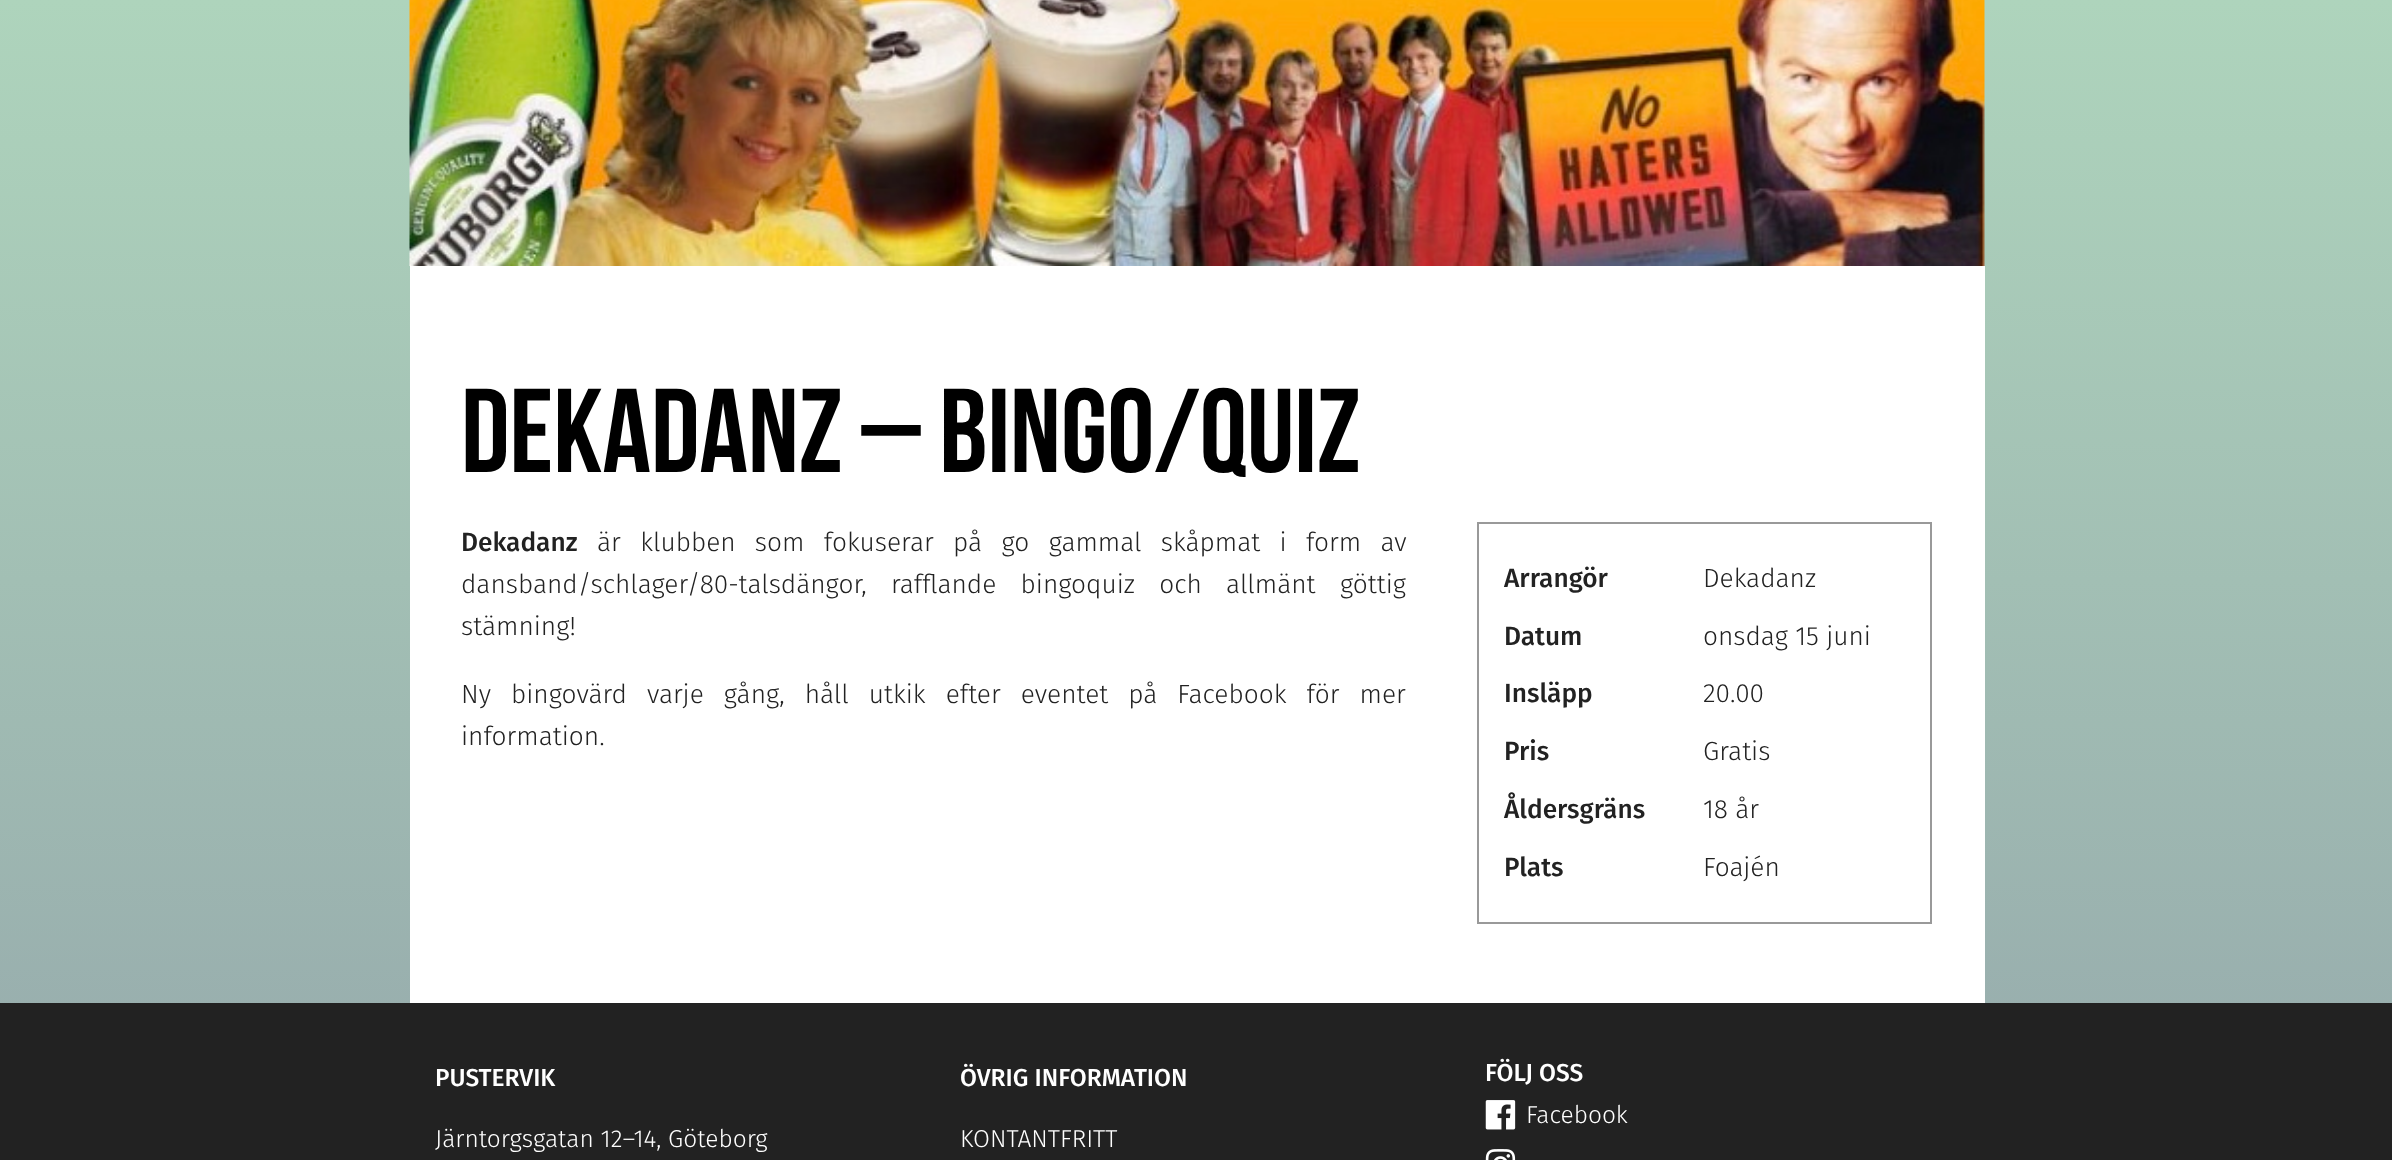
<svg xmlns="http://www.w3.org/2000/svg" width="2392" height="1160">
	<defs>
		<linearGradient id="g1" gradientUnits="userSpaceOnUse" x1="1196" y1="0" x2="1196" y2="1160"><stop offset="0" stop-color="#AED4BC" /><stop offset="1" stop-color="#96AAAC" /></linearGradient>
	</defs>
	<rect width="100%" height="100%" fill="#FFFFFF" />
	<rect x="0" y="0" width="2392" height="1003" fill="url(#g1)" />
	<image x="409" y="0" width="1576" height="266" href="assets/img1.png" />
	<rect x="410" y="266" width="1575" height="737" fill="#FFFFFF" />
	<text x="461" y="472" font-family="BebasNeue" font-size="119" fill="#000000">dekadanz – bingo/quiz</text>
	<text x="461" y="551" font-family="Fira Sans" font-size="26.25" font-weight="500" fill="#222222">Dekadanz</text>
	<g font-family="Fira Sans" font-size="26.25" font-weight="300" fill="#222222">
		<text x="597" y="551" word-spacing="12">är klubben som fokuserar på go gammal skåpmat i form av</text>
		<text x="461" y="593" word-spacing="17">dansband/schlager/80-talsdängor, rafflande bingoquiz och allmänt göttig</text>
		<text x="461" y="635">stämning!</text>
		<text x="461" y="703" word-spacing="12.75">Ny bingovärd varje gång, håll utkik efter eventet på Facebook för mer</text>
		<text x="461" y="745">information.</text>
	</g>
	<rect x="1478" y="523" width="453" height="400" fill="none" stroke="#999999" stroke-width="2" />
	<text x="1504" y="587" font-family="Fira Sans" font-size="26.25" font-weight="500" fill="#222222">Arrangör</text>
	<text x="1703" y="587" font-family="Fira Sans" font-size="26.25" font-weight="300" fill="#222222">Dekadanz</text>
	<text x="1504" y="645" font-family="Fira Sans" font-size="26.25" font-weight="500" fill="#222222">Datum</text>
	<text x="1703" y="645" font-family="Fira Sans" font-size="26.25" font-weight="300" fill="#222222">onsdag 15 juni</text>
	<text x="1504" y="702" font-family="Fira Sans" font-size="26.25" font-weight="500" fill="#222222">Insläpp</text>
	<text x="1703" y="702" font-family="Fira Sans" font-size="26.25" font-weight="300" fill="#222222">20.00</text>
	<text x="1504" y="760" font-family="Fira Sans" font-size="26.25" font-weight="500" fill="#222222">Pris</text>
	<text x="1703" y="760" font-family="Fira Sans" font-size="26.25" font-weight="300" fill="#222222">Gratis</text>
	<text x="1504" y="818" font-family="Fira Sans" font-size="26.25" font-weight="500" fill="#222222">Åldersgräns</text>
	<text x="1703" y="818" font-family="Fira Sans" font-size="26.25" font-weight="300" fill="#222222">18 år</text>
	<text x="1504" y="876" font-family="Fira Sans" font-size="26.25" font-weight="500" fill="#222222">Plats</text>
	<text x="1703" y="876" font-family="Fira Sans" font-size="26.25" font-weight="300" fill="#222222">Foajén</text>
	<rect x="0" y="1003" width="2392" height="157" fill="#222222" />
	<text x="435" y="1086" font-family="Fira Sans" font-size="24.5" font-weight="500" fill="#FFFFFF">PUSTERVIK</text>
	<text x="435" y="1147" font-family="Fira Sans" font-size="24.5" font-weight="300" fill="#FFFFFF">Järntorgsgatan 12–14, Göteborg</text>
	<text x="960" y="1086" font-family="Fira Sans" font-size="24.5" font-weight="500" fill="#FFFFFF">ÖVRIG INFORMATION</text>
	<text x="960" y="1147" font-family="Fira Sans" font-size="24.5" font-weight="300" fill="#FFFFFF">KONTANTFRITT</text>
	<text x="1485" y="1081" font-family="Fira Sans" font-size="24.5" font-weight="500" fill="#FFFFFF">FÖLJ OSS</text>
	<image x="1485" y="1100" width="31" height="30" href="assets/img2.png" />
	<text x="1526" y="1123" font-family="Fira Sans" font-size="24.5" font-weight="300" fill="#FFFFFF">Facebook</text>
	<image x="1485" y="1149" width="31" height="11" href="assets/img3.png" />
</svg>
